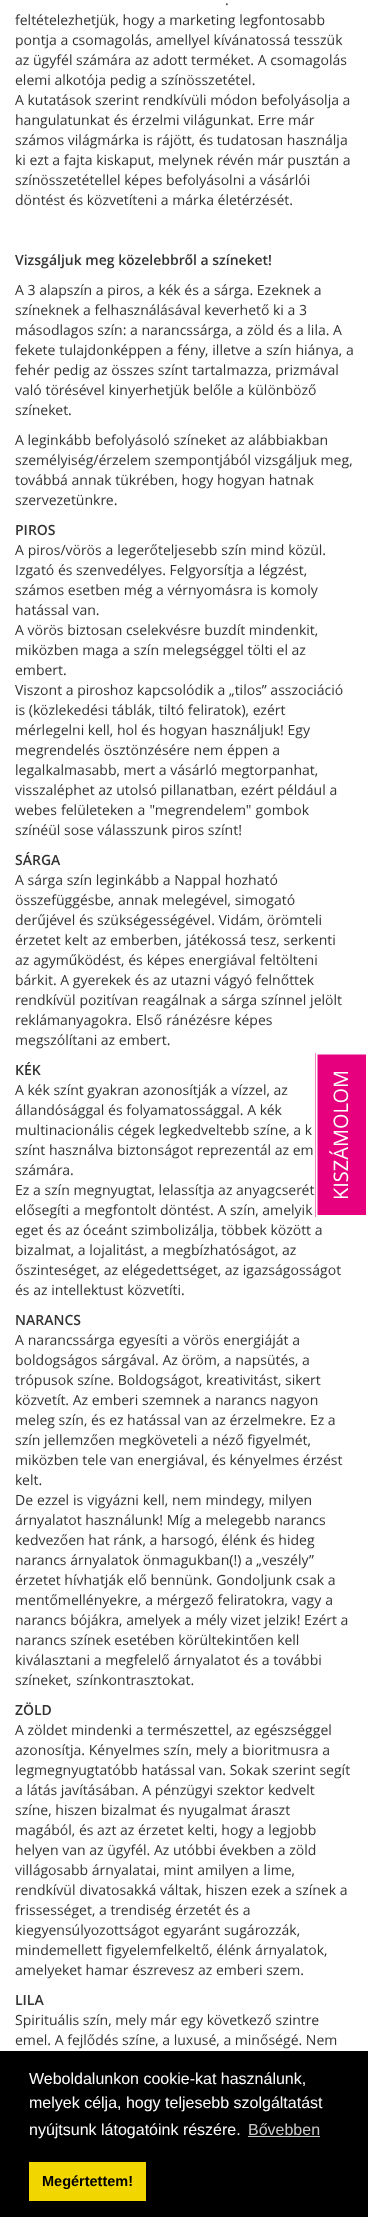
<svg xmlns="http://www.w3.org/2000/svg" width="368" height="2217">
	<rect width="100%" height="100%" fill="#FFFFFF" />
	<g font-family="Open Sans" font-size="14" fill="#333333">
		<text x="225" y="5">.</text>
		<text x="15" y="25">feltételezhetjük, hogy a marketing legfontosabb</text>
		<text x="15" y="45">pontja a csomagolás, amellyel kívánatossá tesszük</text>
		<text x="15" y="65">az ügyfél számára az adott terméket. A csomagolás</text>
		<text x="15" y="85">elemi alkotója pedig a színösszetétel.</text>
		<text x="15" y="105">A kutatások szerint rendkívüli módon befolyásolja a</text>
		<text x="15" y="125">hangulatunkat és érzelmi világunkat. Erre már</text>
		<text x="15" y="145">számos világmárka is rájött, és tudatosan használja</text>
		<text x="15" y="165">ki ezt a fajta kiskaput, melynek révén már pusztán a</text>
		<text x="15" y="185">színösszetétellel képes befolyásolni a vásárlói</text>
		<text x="15" y="205">döntést és közvetíteni a márka életérzését.</text>
	</g>
	<text x="15" y="265" font-family="Open Sans" font-size="14" font-weight="600" fill="#333333">Vizsgáljuk meg közelebbről a színeket!</text>
	<g font-family="Open Sans" font-size="14" fill="#333333">
		<text x="15" y="295">A 3 alapszín a piros, a kék és a sárga. Ezeknek a</text>
		<text x="15" y="315">színeknek a felhasználásával keverhető ki a 3</text>
		<text x="15" y="335">másodlagos szín: a narancssárga, a zöld és a lila. A</text>
		<text x="15" y="355" word-spacing="0.25">fekete tulajdonképpen a fény, illetve a szín hiánya, a</text>
		<text x="15" y="375">fehér pedig az összes színt tartalmazza, prizmával</text>
		<text x="15" y="395">való törésével kinyerhetjük belőle a különböző</text>
		<text x="15" y="415">színeket.</text>
		<text x="15" y="445">A leginkább befolyásoló színeket az alábbiakban</text>
		<text x="15" y="465">személyiség/érzelem szempontjából vizsgáljuk meg,</text>
		<text x="15" y="485">továbbá annak tükrében, hogy hogyan hatnak</text>
		<text x="15" y="505">szervezetünkre.</text>
	</g>
	<text x="15" y="535" font-family="Open Sans" font-size="14" font-weight="600" fill="#333333">PIROS</text>
	<g font-family="Open Sans" font-size="14" fill="#333333">
		<text x="15" y="555" word-spacing="0.25">A piros/vörös a legerőteljesebb szín mind közül.</text>
		<text x="15" y="575">Izgató és szenvedélyes. Felgyorsítja a légzést,</text>
		<text x="15" y="595">számos esetben még a vérnyomásra is komoly</text>
		<text x="15" y="615">hatással van.</text>
		<text x="15" y="635">A vörös biztosan cselekvésre buzdít mindenkit,</text>
		<text x="15" y="655">miközben maga a szín melegséggel tölti el az</text>
		<text x="15" y="675">embert.</text>
		<text x="15" y="695">Viszont a piroshoz kapcsolódik a „tilos” asszociáció</text>
		<text x="15" y="715">is (közlekedési táblák, tiltó feliratok), ezért</text>
		<text x="15" y="735">mérlegelni kell, hol és hogyan használjuk! Egy</text>
		<text x="15" y="755" word-spacing="0.25">megrendelés ösztönzésére nem éppen a</text>
		<text x="15" y="775">legalkalmasabb, mert a vásárló megtorpanhat,</text>
		<text x="15" y="795">visszaléphet az utolsó pillanatban, ezért például a</text>
		<text x="15" y="815" word-spacing="0.5">webes felületeken a "megrendelem" gombok</text>
		<text x="15" y="835">színéül sose válasszunk piros színt!</text>
	</g>
	<text x="15" y="865" font-family="Open Sans" font-size="14" font-weight="600" fill="#333333">SÁRGA</text>
	<g font-family="Open Sans" font-size="14" fill="#333333">
		<text x="15" y="885">A sárga szín leginkább a Nappal hozható</text>
		<text x="15" y="905">összefüggésbe, annak melegével, simogató</text>
		<text x="15" y="925">derűjével és szükségességével. Vidám, örömteli</text>
		<text x="15" y="945" word-spacing="0.25">érzetet kelt az emberben, játékossá tesz, serkenti</text>
		<text x="15" y="965" word-spacing="0.25">az agyműködést, és képes energiával feltölteni</text>
		<text x="15" y="985">bárkit. A gyerekek és az utazni vágyó felnőttek</text>
		<text x="15" y="1005" word-spacing="0.25">rendkívül pozitívan reagálnak a sárga színnel jelölt</text>
		<text x="15" y="1025" word-spacing="0.5">reklámanyagokra. Első ránézésre képes</text>
		<text x="15" y="1045">megszólítani az embert.</text>
	</g>
	<text x="15" y="1075" font-family="Open Sans" font-size="14" font-weight="600" fill="#333333">KÉK</text>
	<g font-family="Open Sans" font-size="14" fill="#333333">
		<text x="15" y="1095">A kék színt gyakran azonosítják a vízzel, az</text>
		<text x="15" y="1115">állandósággal és folyamatossággal. A kék</text>
		<text x="15" y="1135">multinacionális cégek legkedveltebb színe, a k</text>
		<text x="15" y="1155">színt használva biztonságot reprezentál az em</text>
		<text x="15" y="1175">számára.</text>
		<text x="15" y="1195">Ez a szín megnyugtat, lelassítja az anyagcserét</text>
		<text x="15" y="1215">elősegíti a megfontolt döntést. A szín, amelyik</text>
		<text x="15" y="1235">eget és az óceánt szimbolizálja, többek között a</text>
		<text x="15" y="1255">bizalmat, a lojalitást, a megbízhatóságot, az</text>
		<text x="15" y="1275">őszinteséget, az elégedettséget, az igazságosságot</text>
		<text x="15" y="1295">és az intellektust közvetíti.</text>
	</g>
	<text x="15" y="1325" font-family="Open Sans" font-size="14" font-weight="600" fill="#333333">NARANCS</text>
	<g font-family="Open Sans" font-size="14" fill="#333333">
		<text x="15" y="1345" word-spacing="0.25">A narancssárga egyesíti a vörös energiáját a</text>
		<text x="15" y="1365">boldogságos sárgával. Az öröm, a napsütés, a</text>
		<text x="15" y="1385">trópusok színe. Boldogságot, kreativitást, sikert</text>
		<text x="15" y="1405">közvetít. Az emberi szemnek a narancs nagyon</text>
		<text x="15" y="1425">meleg szín, és ez hatással van az érzelmekre. Ez a</text>
		<text x="15" y="1445">szín jellemzően megköveteli a néző figyelmét,</text>
		<text x="15" y="1465">miközben tele van energiával, és kényelmes érzést</text>
		<text x="15" y="1485">kelt.</text>
		<text x="15" y="1505" word-spacing="0.25">De ezzel is vigyázni kell, nem mindegy, milyen</text>
		<text x="15" y="1525">árnyalatot használunk! Míg a melegebb narancs</text>
		<text x="15" y="1545">kedvezően hat ránk, a harsogó, élénk és hideg</text>
		<text x="15" y="1565">narancs árnyalatok önmagukban(!) a „veszély”</text>
		<text x="15" y="1585">érzetet hívhatják elő bennünk. Gondoljunk csak a</text>
		<text x="15" y="1605" word-spacing="0.25">mentőmellényekre, a mérgező feliratokra, vagy a</text>
		<text x="15" y="1625">narancs bójákra, amelyek a mély vizet jelzik! Ezért a</text>
		<text x="15" y="1645">narancs színek esetében körültekintően kell</text>
		<text x="15" y="1665">kiválasztani a megfelelő árnyalatot és a további</text>
		<text x="15" y="1685" word-spacing="1">színeket, színkontrasztokat.</text>
	</g>
	<text x="15" y="1715" font-family="Open Sans" font-size="14" font-weight="600" fill="#333333">ZÖLD</text>
	<g font-family="Open Sans" font-size="14" fill="#333333">
		<text x="15" y="1735">A zöldet mindenki a természettel, az egészséggel</text>
		<text x="15" y="1755">azonosítja. Kényelmes szín, mely a bioritmusra a</text>
		<text x="15" y="1775">legmegnyugtatóbb hatással van. Sokak szerint segít</text>
		<text x="15" y="1795">a látás javításában. A pénzügyi szektor kedvelt</text>
		<text x="15" y="1815">színe, hiszen bizalmat és nyugalmat áraszt</text>
		<text x="15" y="1835">magából, és azt az érzetet kelti, hogy a legjobb</text>
		<text x="15" y="1855">helyen van az ügyfél. Az utóbbi években a zöld</text>
		<text x="15" y="1875">villágosabb árnyalatai, mint amilyen a lime,</text>
		<text x="15" y="1895">rendkívül divatosakká váltak, hiszen ezek a színek a</text>
		<text x="15" y="1915">frissességet, a trendiség érzetét és a</text>
		<text x="15" y="1935">kiegyensúlyozottságot egyaránt sugározzák,</text>
		<text x="15" y="1955">mindemellett figyelemfelkeltő, élénk árnyalatok,</text>
		<text x="15" y="1975">amelyeket hamar észrevesz az emberi szem.</text>
	</g>
	<text x="15" y="2005" font-family="Open Sans" font-size="14" font-weight="600" fill="#333333">LILA</text>
	<g font-family="Open Sans" font-size="14" fill="#333333">
		<text x="15" y="2025">Spirituális szín, mely már egy következő szintre</text>
		<text x="15" y="2045">emel. A fejlődés színe, a luxusé, a minőségé. Nem</text>
	</g>
	<rect x="315" y="1053" width="51" height="164" fill="#E6007E" />
	<path d="M316.5 1216V1053.5H367V1216Z" fill="none" stroke="#FFFFFF" stroke-width="2" />
	<text x="348" y="1200" transform="rotate(-90 348 1200)" font-family="Open Sans" font-size="20" fill="#FFFFFF">KISZÁMOLOM</text>
	<rect x="0" y="2051" width="368" height="166" fill="#000000" />
	<g font-family="Liberation Sans" font-size="16" fill="#FFFFFF">
		<text x="29" y="2084">Weboldalunkon cookie-kat használunk,</text>
		<text x="29" y="2108">melyek célja, hogy teljesebb szolgáltatást</text>
		<text x="29" y="2135">nyújtsunk látogatóink részére.</text>
	</g>
	<text x="248" y="2135" font-family="Liberation Sans" font-size="16" fill="#CCCCCC">Bővebben</text>
	<rect x="248" y="2136" width="72" height="1" fill="#CCCCCC" />
	<rect x="29" y="2162" width="117" height="39" fill="#F1D600" />
	<text x="42" y="2186" font-family="Liberation Sans" font-size="14.5" font-weight="700" fill="#000000">Megértettem!</text>
</svg>
